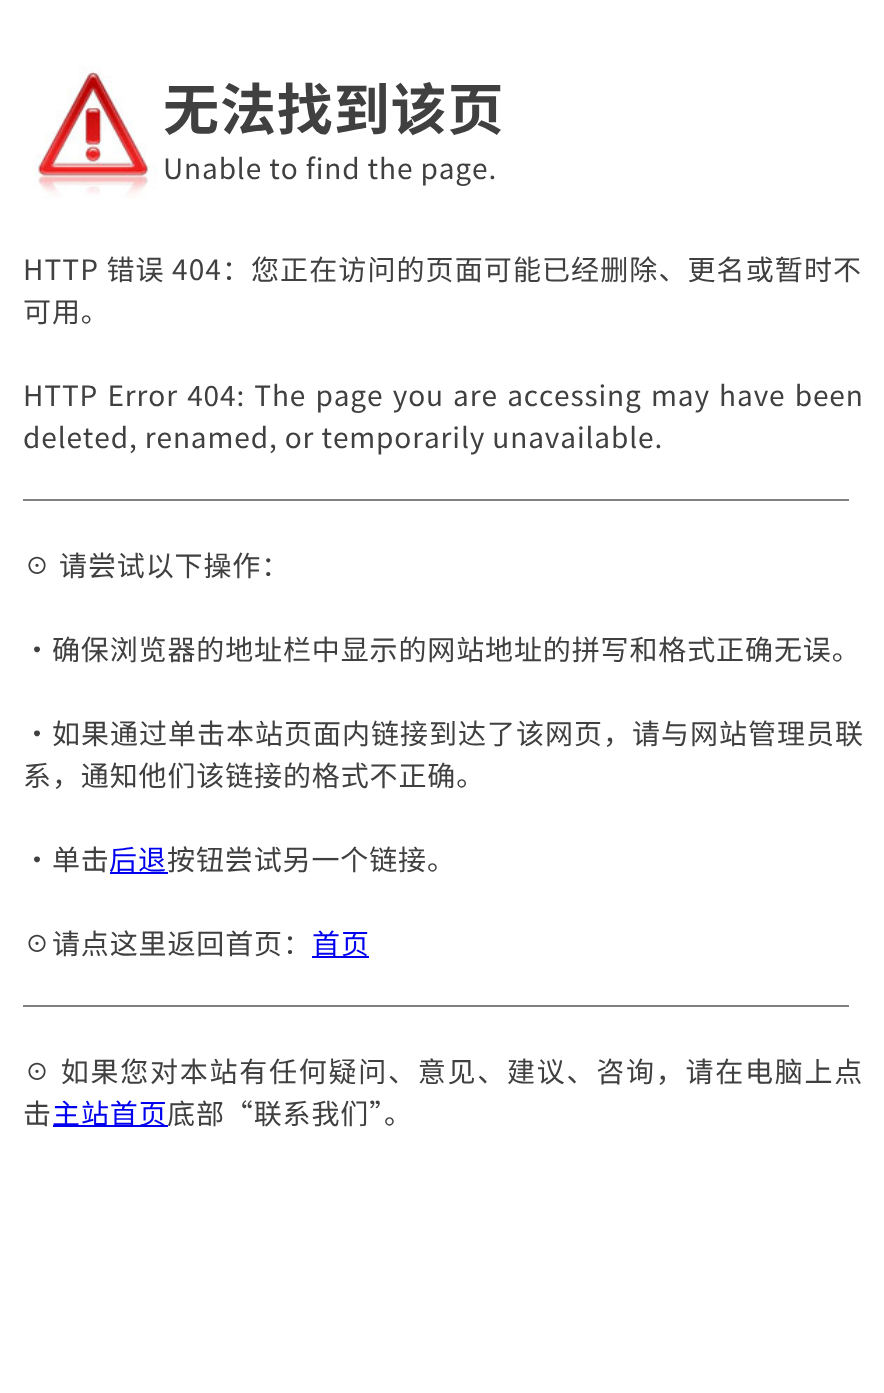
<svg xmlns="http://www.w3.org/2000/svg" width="884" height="1393">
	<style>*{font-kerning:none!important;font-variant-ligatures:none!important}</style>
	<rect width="100%" height="100%" fill="#FFFFFF" />
	<image x="34" y="65" width="123" height="134" href="assets/img1.png" />
	<text x="163" y="130" font-family="Noto Sans SC" font-size="56" font-weight="700" letter-spacing="0.88" fill="#404040">无法找到该页</text>
	<text x="163" y="179" font-family="Noto Sans SC" font-size="28" letter-spacing="0.88" fill="#404040">Unable to find the page.</text>
	<text x="23" y="280" font-family="Noto Sans SC" font-size="28" letter-spacing="1.1" fill="#404040">HTTP 错误 404：您正在访问的页面可能已经删除、更名或暂时不</text>
	<g font-family="Noto Sans SC" font-size="28" letter-spacing="0.88" fill="#404040">
		<text x="23" y="322">可用。</text>
		<text x="23" y="406" word-spacing="2.1">HTTP Error 404: The page you are accessing may have been</text>
		<text x="23" y="448">deleted, renamed, or temporarily unavailable.</text>
	</g>
	<rect x="23" y="499" width="826" height="2" fill="#808080" />
	<g font-family="Noto Sans SC" font-size="28" letter-spacing="0.88" fill="#404040">
		<text x="23" y="576">☉ 请尝试以下操作：</text>
		<text x="23" y="660">·确保浏览器的地址栏中显示的网站地址的拼写和格式正确无误。</text>
	</g>
	<text x="23" y="744" font-family="Noto Sans SC" font-size="28" letter-spacing="1" fill="#404040">·如果通过单击本站页面内链接到达了该网页，请与网站管理员联</text>
	<g font-family="Noto Sans SC" font-size="28" letter-spacing="0.88" fill="#404040">
		<text x="23" y="786">系，通知他们该链接的格式不正确。</text>
		<text x="23" y="870">·单击</text>
	</g>
	<rect x="110" y="872" width="58" height="2" fill="#0000EE" />
	<text x="109" y="870" font-family="Noto Sans SC" font-size="28" letter-spacing="0.88" fill="#0000EE">后退</text>
	<g font-family="Noto Sans SC" font-size="28" letter-spacing="0.88" fill="#404040">
		<text x="167" y="870">按钮尝试另一个链接。</text>
		<text x="23" y="954">☉请点这里返回首页：</text>
	</g>
	<rect x="312" y="956" width="57" height="2" fill="#0000EE" />
	<text x="312" y="954" font-family="Noto Sans SC" font-size="28" letter-spacing="0.88" fill="#0000EE">首页</text>
	<rect x="23" y="1005" width="826" height="2" fill="#808080" />
	<text x="23" y="1082" font-family="Noto Sans SC" font-size="28" letter-spacing="1.75" fill="#404040">☉ 如果您对本站有任何疑问、意见、建议、咨询，请在电脑上点</text>
	<text x="23" y="1124" font-family="Noto Sans SC" font-size="28" letter-spacing="0.88" fill="#404040">击</text>
	<rect x="53" y="1125" width="115" height="2" fill="#0000EE" />
	<text x="52" y="1124" font-family="Noto Sans SC" font-size="28" letter-spacing="0.88" fill="#0000EE">主站首页</text>
	<text x="167" y="1124" font-family="Noto Sans SC" font-size="28" letter-spacing="0.88" fill="#404040">底部“联系我们”。</text>
</svg>
